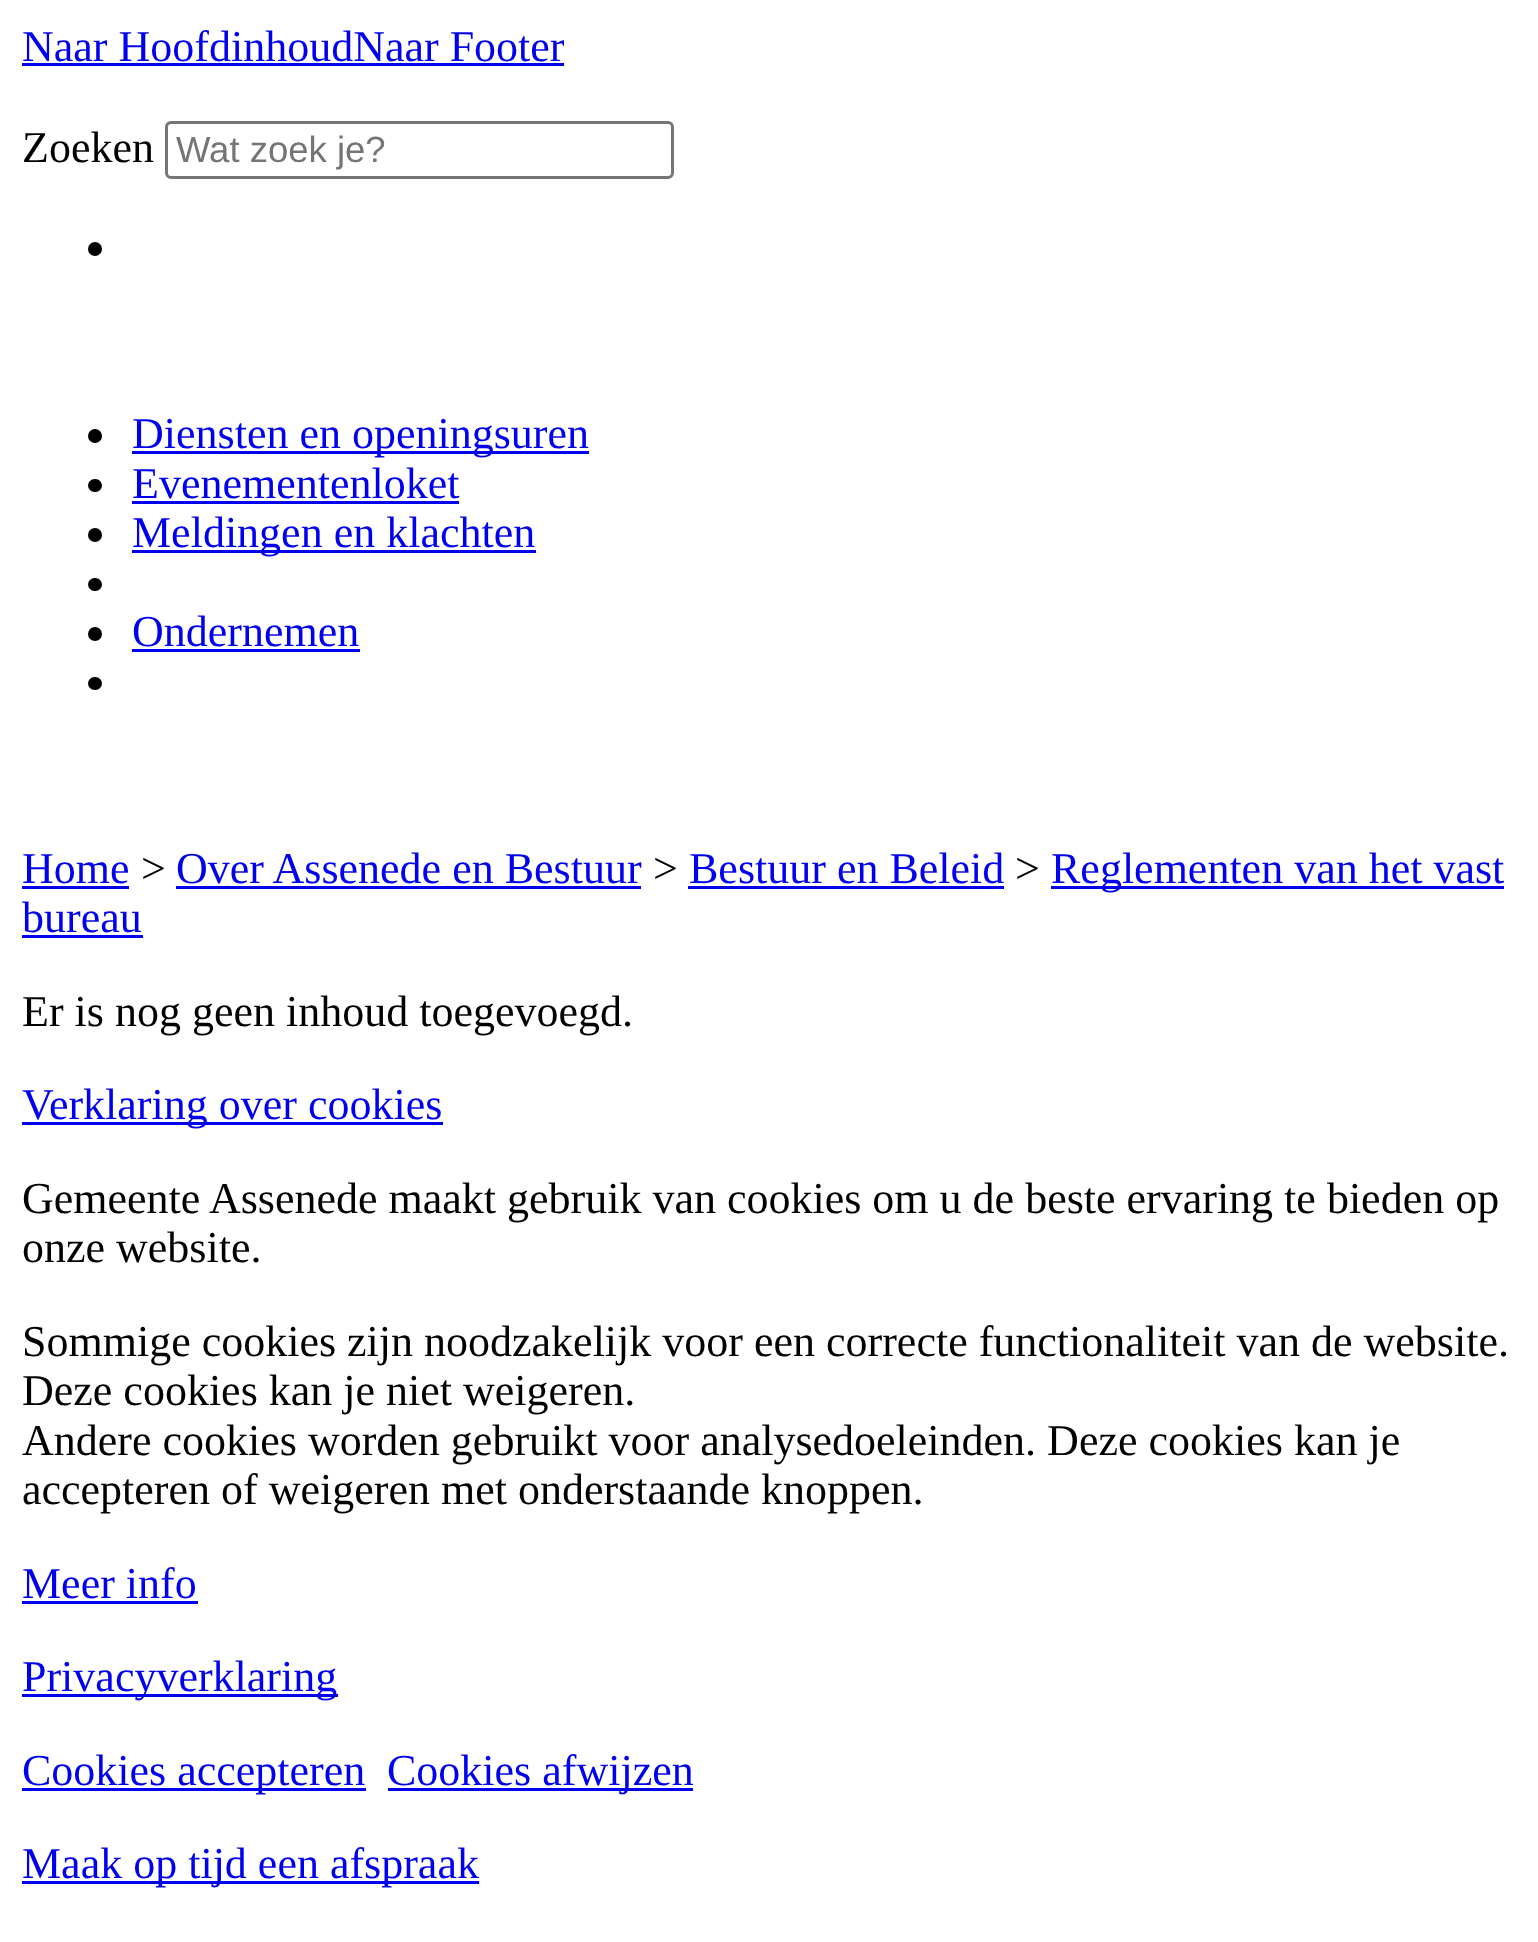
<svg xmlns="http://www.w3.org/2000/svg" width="1538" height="1942">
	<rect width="100%" height="100%" fill="#FFFFFF" />
	<text x="22" y="61" font-family="Liberation Serif" font-size="44" fill="#0000EE">Naar HoofdinhoudNaar Footer</text>
	<rect x="22" y="63" width="542" height="3" fill="#0000EE" />
	<text x="22" y="162" font-family="Liberation Serif" font-size="44" fill="#000000">Zoeken</text>
	<rect x="166.5" y="122.5" width="506" height="55" rx="4.5" fill="none" stroke="#767676" stroke-width="3" />
	<text x="176" y="162" font-family="Liberation Sans" font-size="36.5" fill="#757575">Wat zoek je?</text>
	<circle cx="95" cy="249" r="7" fill="#000000" />
	<circle cx="95" cy="436" r="7" fill="#000000" />
	<rect x="132" y="451" width="457" height="3" fill="#0000EE" />
	<text x="132" y="448" font-family="Liberation Serif" font-size="44" fill="#0000EE">Diensten en openingsuren</text>
	<rect x="88" y="479" width="14" height="13" rx="6.5" fill="#000000" />
	<text x="132" y="498" font-family="Liberation Serif" font-size="44" fill="#0000EE">Evenementenloket</text>
	<rect x="132" y="501" width="327" height="3" fill="#0000EE" />
	<circle cx="95" cy="535" r="7" fill="#000000" />
	<rect x="132" y="550" width="404" height="3" fill="#0000EE" />
	<text x="132" y="547" font-family="Liberation Serif" font-size="44" fill="#0000EE">Meldingen en klachten</text>
	<rect x="88" y="578" width="14" height="13" rx="6.5" fill="#000000" />
	<circle cx="95" cy="634" r="7" fill="#000000" />
	<text x="132" y="646" font-family="Liberation Serif" font-size="44" fill="#0000EE">Ondernemen</text>
	<rect x="132" y="649" width="228" height="3" fill="#0000EE" />
	<rect x="88" y="677" width="14" height="13" rx="6.5" fill="#000000" />
	<text x="22" y="883" font-family="Liberation Serif" font-size="44" fill="#0000EE">Home</text>
	<rect x="22" y="886" width="107" height="3" fill="#0000EE" />
	<text x="141" y="883" font-family="Liberation Serif" font-size="44" fill="#000000">&gt;</text>
	<text x="176" y="883" font-family="Liberation Serif" font-size="44" fill="#0000EE">Over Assenede en Bestuur</text>
	<rect x="176" y="886" width="465" height="3" fill="#0000EE" />
	<text x="653" y="883" font-family="Liberation Serif" font-size="44" fill="#000000">&gt;</text>
	<text x="689" y="883" font-family="Liberation Serif" font-size="44" fill="#0000EE">Bestuur en Beleid</text>
	<rect x="688" y="886" width="316" height="3" fill="#0000EE" />
	<text x="1015" y="883" font-family="Liberation Serif" font-size="44" fill="#000000">&gt;</text>
	<rect x="1051" y="886" width="453" height="3" fill="#0000EE" />
	<g font-family="Liberation Serif" font-size="44" fill="#0000EE">
		<text x="1051" y="883">Reglementen van het vast</text>
		<text x="22" y="932">bureau</text>
	</g>
	<rect x="22" y="935" width="121" height="3" fill="#0000EE" />
	<text x="22" y="1026" font-family="Liberation Serif" font-size="44" fill="#000000">Er is nog geen inhoud toegevoegd.</text>
	<rect x="22" y="1122" width="421" height="3" fill="#0000EE" />
	<text x="22" y="1119" font-family="Liberation Serif" font-size="44" fill="#0000EE">Verklaring over cookies</text>
	<g font-family="Liberation Serif" font-size="44" fill="#000000">
		<text x="22" y="1213">Gemeente Assenede maakt gebruik van cookies om u de beste ervaring te bieden op</text>
		<text x="22" y="1262">onze website.</text>
		<text x="22" y="1356">Sommige cookies zijn noodzakelijk voor een correcte functionaliteit van de website.</text>
		<text x="22" y="1405">Deze cookies kan je niet weigeren.</text>
		<text x="22" y="1455">Andere cookies worden gebruikt voor analysedoeleinden. Deze cookies kan je</text>
		<text x="22" y="1504">accepteren of weigeren met onderstaande knoppen.</text>
	</g>
	<text x="22" y="1598" font-family="Liberation Serif" font-size="44" fill="#0000EE">Meer info</text>
	<rect x="22" y="1601" width="176" height="3" fill="#0000EE" />
	<rect x="22" y="1694" width="316" height="3" fill="#0000EE" />
	<text x="22" y="1691" font-family="Liberation Serif" font-size="44" fill="#0000EE">Privacyverklaring</text>
	<rect x="22" y="1788" width="344" height="3" fill="#0000EE" />
	<text x="22" y="1785" font-family="Liberation Serif" font-size="44" fill="#0000EE">Cookies accepteren</text>
	<rect x="388" y="1788" width="305" height="3" fill="#0000EE" />
	<text x="387" y="1785" font-family="Liberation Serif" font-size="44" fill="#0000EE">Cookies afwijzen</text>
	<rect x="22" y="1881" width="457" height="3" fill="#0000EE" />
	<text x="22" y="1878" font-family="Liberation Serif" font-size="44" fill="#0000EE">Maak op tijd een afspraak</text>
</svg>
